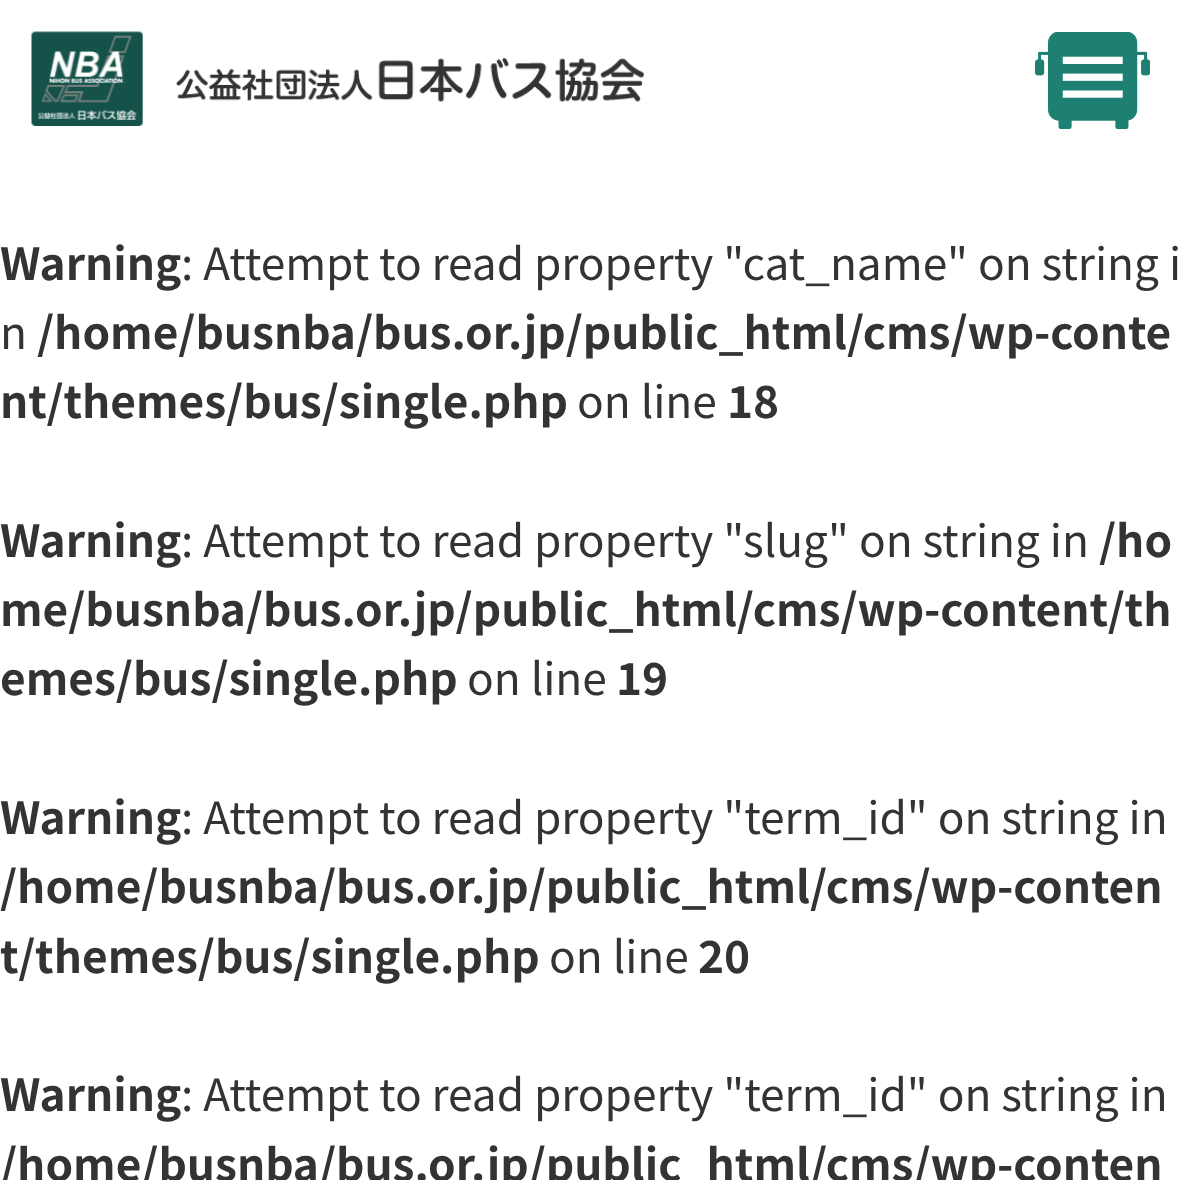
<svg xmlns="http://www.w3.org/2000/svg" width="1182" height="1180">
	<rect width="100%" height="100%" fill="#FFFFFF" />
	<image x="31" y="31" width="613" height="95" href="assets/img1.png" />
	<image x="1035" y="32" width="115" height="97" href="assets/img2.png" />
	<text x="0" y="280" font-family="Noto Sans JP" font-size="44.2" font-weight="700" fill="#333333">Warning</text>
	<g font-family="Noto Sans JP" font-size="44.2" fill="#333333">
		<text x="181" y="280">: Attempt to read property "cat_name" on string i</text>
		<text x="0" y="349">n</text>
	</g>
	<g font-family="Noto Sans JP" font-size="44.2" font-weight="700" fill="#333333">
		<text x="37" y="349">/home/busnba/bus.or.jp/public_html/cms/wp-conte</text>
		<text x="0" y="418">nt/themes/bus/single.php</text>
	</g>
	<text x="577" y="418" font-family="Noto Sans JP" font-size="44.2" fill="#333333">on line</text>
	<g font-family="Noto Sans JP" font-size="44.2" font-weight="700" fill="#333333">
		<text x="727" y="418">18</text>
		<text x="0" y="557">Warning</text>
	</g>
	<text x="181" y="557" font-family="Noto Sans JP" font-size="44.2" fill="#333333">: Attempt to read property "slug" on string in</text>
	<g font-family="Noto Sans JP" font-size="44.2" font-weight="700" fill="#333333">
		<text x="1099" y="557">/ho</text>
		<text x="0" y="626">me/busnba/bus.or.jp/public_html/cms/wp-content/th</text>
		<text x="0" y="695">emes/bus/single.php</text>
	</g>
	<text x="467" y="695" font-family="Noto Sans JP" font-size="44.2" fill="#333333">on line</text>
	<g font-family="Noto Sans JP" font-size="44.2" font-weight="700" fill="#333333">
		<text x="616" y="695">19</text>
		<text x="0" y="834">Warning</text>
	</g>
	<text x="181" y="834" font-family="Noto Sans JP" font-size="44.2" fill="#333333">: Attempt to read property "term_id" on string in</text>
	<g font-family="Noto Sans JP" font-size="44.2" font-weight="700" fill="#333333">
		<text x="0" y="903">/home/busnba/bus.or.jp/public_html/cms/wp-conten</text>
		<text x="0" y="973">t/themes/bus/single.php</text>
	</g>
	<text x="549" y="973" font-family="Noto Sans JP" font-size="44.2" fill="#333333">on line</text>
	<g font-family="Noto Sans JP" font-size="44.2" font-weight="700" fill="#333333">
		<text x="698" y="973">20</text>
		<text x="0" y="1111">Warning</text>
	</g>
	<text x="181" y="1111" font-family="Noto Sans JP" font-size="44.2" fill="#333333">: Attempt to read property "term_id" on string in</text>
	<text x="0" y="1181" font-family="Noto Sans JP" font-size="44.2" font-weight="700" fill="#333333">/home/busnba/bus.or.jp/public_html/cms/wp-conten</text>
</svg>
